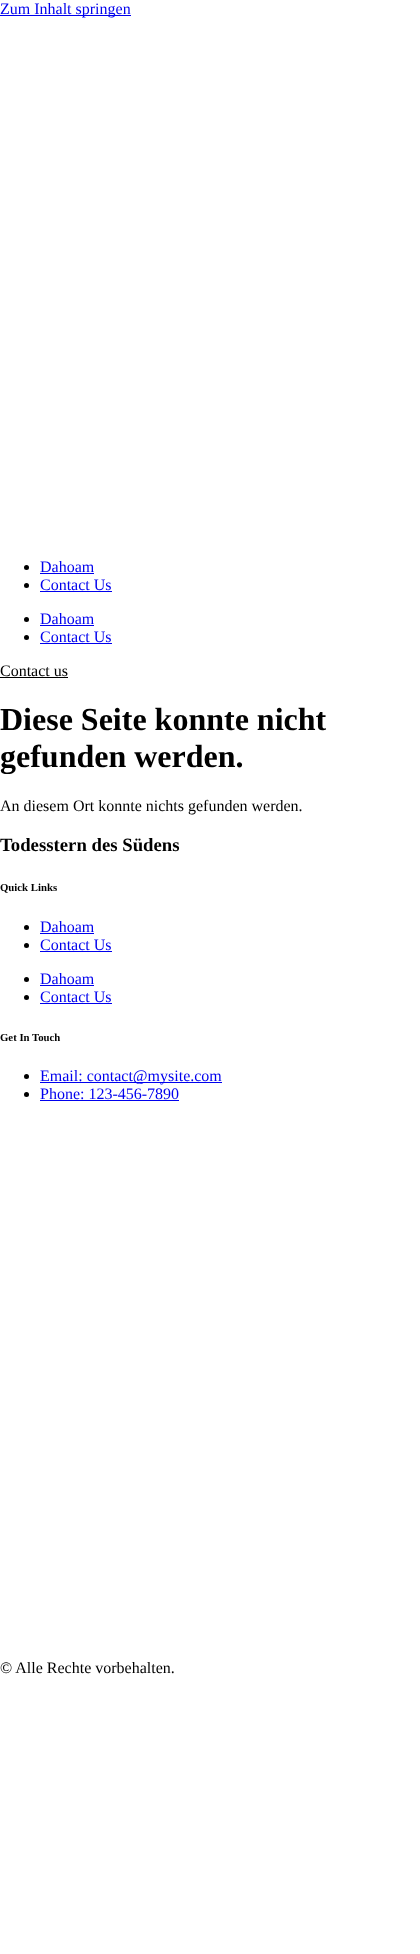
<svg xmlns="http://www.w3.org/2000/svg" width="420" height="1954">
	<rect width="100%" height="100%" fill="#FFFFFF" />
	<rect x="0" y="15" width="131" height="1" fill="#0000EE" />
	<text x="0" y="14" font-family="Liberation Serif" font-size="16" fill="#0000EE">Zum Inhalt springen</text>
	<circle cx="26.5" cy="567.5" r="2.5" fill="#000000" />
	<text x="40" y="572" font-family="Liberation Serif" font-size="16" fill="#0000EE">Dahoam</text>
	<rect x="40" y="573" width="54" height="1" fill="#0000EE" />
	<circle cx="26.5" cy="585.5" r="2.5" fill="#000000" />
	<text x="40" y="590" font-family="Liberation Serif" font-size="16" fill="#0000EE">Contact Us</text>
	<rect x="40" y="591" width="72" height="1" fill="#0000EE" />
	<circle cx="26.5" cy="619.5" r="2.5" fill="#000000" />
	<text x="40" y="624" font-family="Liberation Serif" font-size="16" fill="#0000EE">Dahoam</text>
	<rect x="40" y="625" width="54" height="1" fill="#0000EE" />
	<circle cx="26.5" cy="637.5" r="2.5" fill="#000000" />
	<text x="40" y="642" font-family="Liberation Serif" font-size="16" fill="#0000EE">Contact Us</text>
	<rect x="40" y="643" width="72" height="1" fill="#0000EE" />
	<text x="0" y="676" font-family="Liberation Serif" font-size="16" fill="#000000">Contact us</text>
	<rect x="0" y="677" width="68" height="1" fill="#000000" />
	<g font-family="Liberation Serif" font-size="32" font-weight="700" fill="#000000">
		<text x="0" y="730">Diese Seite konnte nicht</text>
		<text x="0" y="767">gefunden werden.</text>
	</g>
	<text x="0" y="811" font-family="Liberation Serif" font-size="16" fill="#000000">An diesem Ort konnte nichts gefunden werden.</text>
	<text x="0" y="851" font-family="Liberation Serif" font-size="18.75" font-weight="700" fill="#000000">Todesstern des Südens</text>
	<text x="0" y="891" font-family="Liberation Serif" font-size="10.75" font-weight="700" fill="#000000">Quick Links</text>
	<circle cx="26.5" cy="927.5" r="2.5" fill="#000000" />
	<text x="40" y="932" font-family="Liberation Serif" font-size="16" fill="#0000EE">Dahoam</text>
	<rect x="40" y="933" width="54" height="1" fill="#0000EE" />
	<circle cx="26.5" cy="945.5" r="2.5" fill="#000000" />
	<text x="40" y="950" font-family="Liberation Serif" font-size="16" fill="#0000EE">Contact Us</text>
	<rect x="40" y="951" width="72" height="1" fill="#0000EE" />
	<circle cx="26.5" cy="979.5" r="2.5" fill="#000000" />
	<text x="40" y="984" font-family="Liberation Serif" font-size="16" fill="#0000EE">Dahoam</text>
	<rect x="40" y="985" width="54" height="1" fill="#0000EE" />
	<circle cx="26.5" cy="997.5" r="2.5" fill="#000000" />
	<text x="40" y="1002" font-family="Liberation Serif" font-size="16" fill="#0000EE">Contact Us</text>
	<rect x="40" y="1003" width="72" height="1" fill="#0000EE" />
	<text x="0" y="1041" font-family="Liberation Serif" font-size="10.75" font-weight="700" fill="#000000">Get In Touch</text>
	<circle cx="26.5" cy="1076.5" r="2.5" fill="#000000" />
	<rect x="40" y="1082" width="182" height="1" fill="#0000EE" />
	<text x="40" y="1081" font-family="Liberation Serif" font-size="16" fill="#0000EE">Email: contact@mysite.com</text>
	<circle cx="26.5" cy="1094.5" r="2.5" fill="#000000" />
	<text x="40" y="1099" font-family="Liberation Serif" font-size="16" fill="#0000EE">Phone: 123-456-7890</text>
	<rect x="40" y="1100" width="139" height="1" fill="#0000EE" />
	<text x="0" y="1673" font-family="Liberation Serif" font-size="16" fill="#000000">© Alle Rechte vorbehalten.</text>
</svg>
